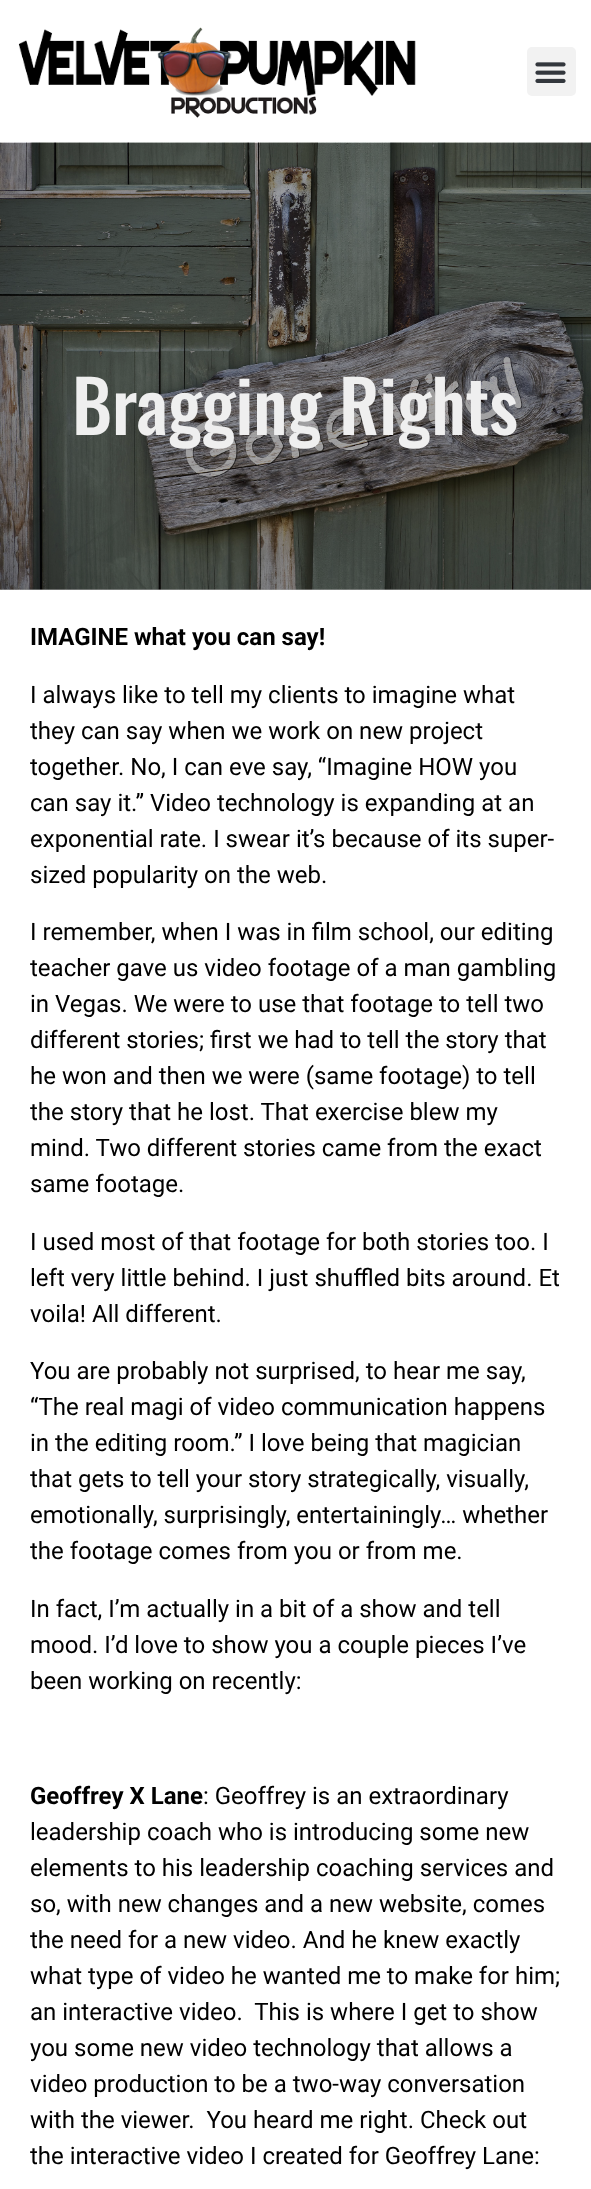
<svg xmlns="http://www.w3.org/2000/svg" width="591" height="2189">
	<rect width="100%" height="100%" fill="#FFFFFF" />
	<rect x="0" y="589" width="591" height="1" fill="#A8A8A8" />
	<image x="18" y="27" width="398" height="91" href="assets/img1.png" />
	<rect x="527" y="47" width="49" height="49" rx="5" fill="#F2F2F2" />
	<image x="535" y="62" width="31" height="21" href="assets/img2.png" />
	<image x="0" y="142" width="591" height="448" href="assets/img3.png" />
	<text x="72" y="435" font-family="Oswald" font-size="72" font-weight="500" fill="#EFEFEF">Bragging Rights</text>
	<text x="30" y="645" font-family="Roboto" font-size="24" font-weight="700" fill="#000000">IMAGINE what you can say!</text>
	<g font-family="Roboto" font-size="24" fill="#000000">
		<text x="30" y="703">I always like to tell my clients to imagine what</text>
		<text x="30" y="739">they can say when we work on new project</text>
		<text x="30" y="775">together. No, I can eve say, “Imagine HOW you</text>
		<text x="30" y="811">can say it.” Video technology is expanding at an</text>
		<text x="30" y="847">exponential rate. I swear it’s because of its super-</text>
		<text x="30" y="883">sized popularity on the web.</text>
		<text x="30" y="940">I remember, when I was in film school, our editing</text>
		<text x="30" y="976">teacher gave us video footage of a man gambling</text>
		<text x="30" y="1012">in Vegas. We were to use that footage to tell two</text>
		<text x="30" y="1048">different stories; first we had to tell the story that</text>
		<text x="30" y="1084">he won and then we were (same footage) to tell</text>
		<text x="30" y="1120">the story that he lost. That exercise blew my</text>
		<text x="30" y="1156">mind. Two different stories came from the exact</text>
		<text x="30" y="1192">same footage.</text>
		<text x="30" y="1250">I used most of that footage for both stories too. I</text>
		<text x="30" y="1286">left very little behind. I just shuffled bits around. Et</text>
		<text x="30" y="1322">voila! All different.</text>
		<text x="30" y="1379">You are probably not surprised, to hear me say,</text>
		<text x="30" y="1415">“The real magi of video communication happens</text>
		<text x="30" y="1451">in the editing room.” I love being that magician</text>
		<text x="30" y="1487">that gets to tell your story strategically, visually,</text>
		<text x="30" y="1523">emotionally, surprisingly, entertainingly… whether</text>
		<text x="30" y="1559">the footage comes from you or from me.</text>
		<text x="30" y="1617">In fact, I’m actually in a bit of a show and tell</text>
		<text x="30" y="1653">mood. I’d love to show you a couple pieces I’ve</text>
		<text x="30" y="1689">been working on recently:</text>
	</g>
	<text x="30" y="1804" font-family="Roboto" font-size="24" font-weight="700" fill="#000000">Geoffrey X Lane</text>
	<g font-family="Roboto" font-size="24" fill="#000000">
		<text x="203" y="1804">: Geoffrey is an extraordinary</text>
		<text x="30" y="1840">leadership coach who is introducing some new</text>
		<text x="30" y="1876">elements to his leadership coaching services and</text>
		<text x="30" y="1912">so, with new changes and a new website, comes</text>
		<text x="30" y="1948">the need for a new video. And he knew exactly</text>
		<text x="30" y="1984">what type of video he wanted me to make for him;</text>
		<text x="30" y="2020" xml:space="preserve">an interactive video.  This is where I get to show</text>
		<text x="30" y="2056">you some new video technology that allows a</text>
		<text x="30" y="2092">video production to be a two-way conversation</text>
		<text x="30" y="2128" xml:space="preserve">with the viewer.  You heard me right. Check out</text>
		<text x="30" y="2164">the interactive video I created for Geoffrey Lane:</text>
	</g>
</svg>
